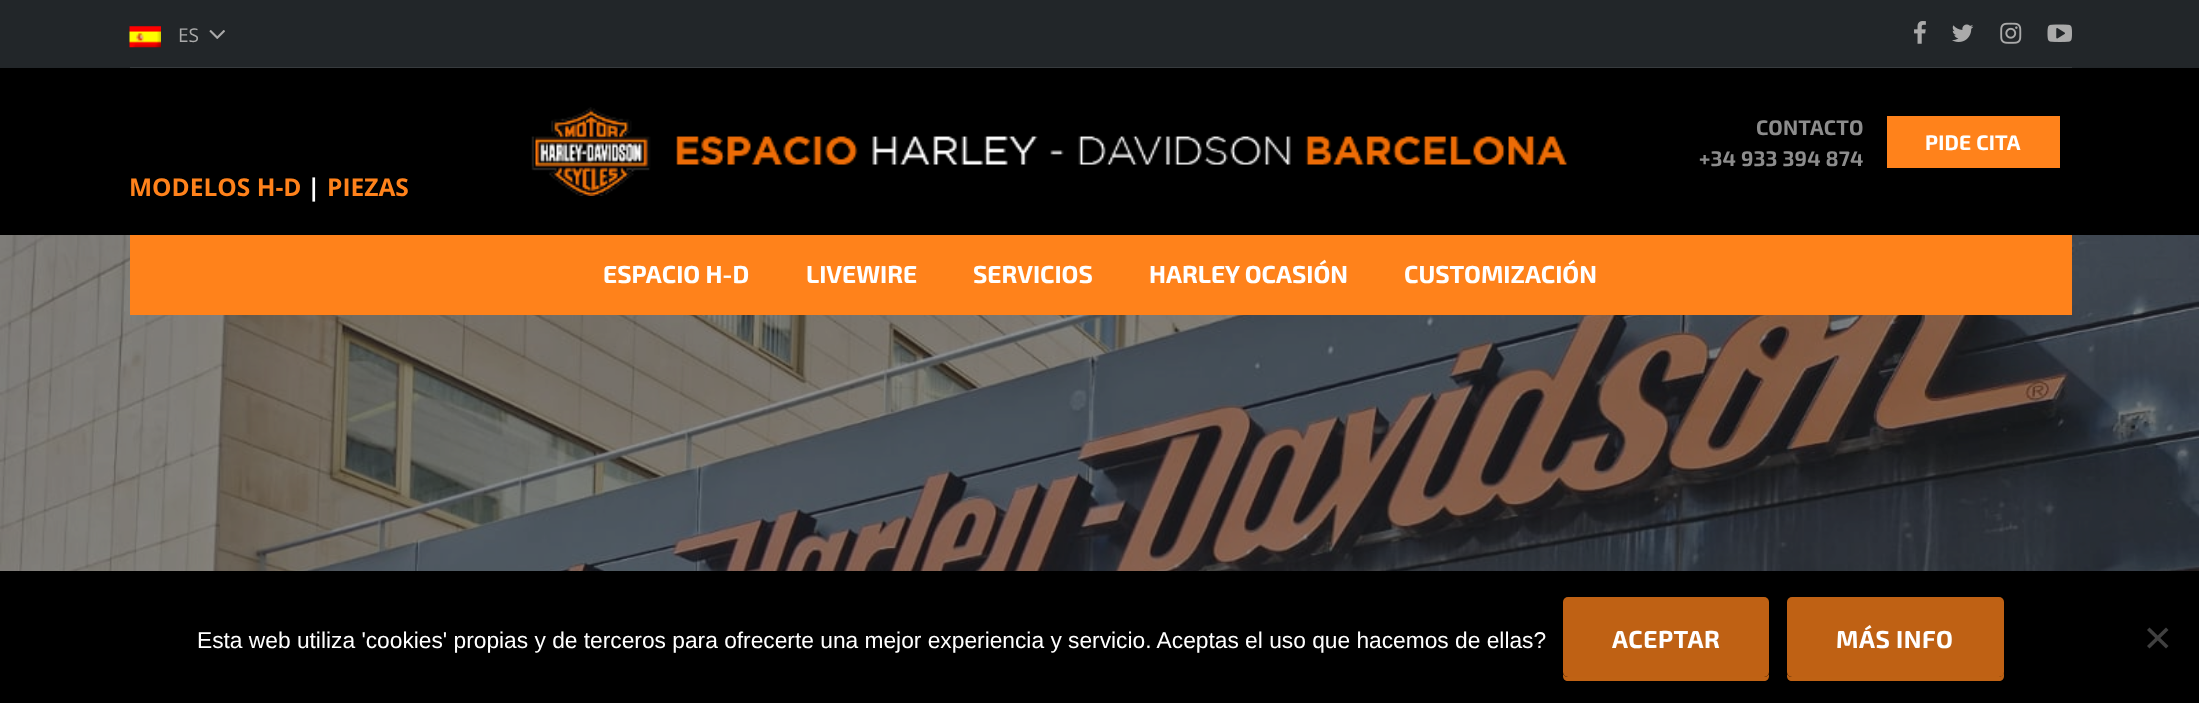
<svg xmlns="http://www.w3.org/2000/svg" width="2199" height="703">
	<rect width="100%" height="100%" fill="#222629" />
	<rect x="130" y="67" width="1942" height="1" fill="#373B3E" />
	<image x="129" y="26" width="32" height="22" href="assets/img1.png" />
	<text x="178" y="42" font-family="Open Sans" font-size="19" fill="#AAAAAA">ES</text>
	<image x="209" y="30" width="16" height="9" href="assets/img2.png" />
	<image x="1914" y="21" width="12" height="23" href="assets/img3.png" />
	<image x="1952" y="24" width="22" height="18" href="assets/img4.png" />
	<image x="2000" y="22" width="22" height="22" href="assets/img5.png" />
	<image x="2047" y="24" width="25" height="18" href="assets/img6.png" />
	<rect x="0" y="68" width="2199" height="167" fill="#000000" />
	<image x="531" y="107" width="1037" height="89" href="assets/img7.png" />
	<g font-family="'Exo 2'" font-size="21" font-weight="700" letter-spacing="0.2" fill="#8C8C8C">
		<text x="1756" y="135">CONTACTO</text>
		<text x="1699" y="166">+34 933 394 874</text>
	</g>
	<rect x="1887" y="116" width="173" height="52" fill="#FF821B" />
	<text x="1925" y="150" font-family="'Exo 2'" font-size="21" font-weight="700" letter-spacing="0.2" fill="#FFFFFF">PIDE CITA</text>
	<text x="129" y="196" font-family="Open Sans" font-size="24.5" font-weight="700" fill="#FF821B">MODELOS H-D</text>
	<text x="307" y="196" font-family="Open Sans" font-size="24.5" font-weight="700" fill="#FFFFFF">|</text>
	<text x="327" y="196" font-family="Open Sans" font-size="24.5" font-weight="700" fill="#FF821B">PIEZAS</text>
	<image x="0" y="235" width="2199" height="336" href="assets/img8.png" />
	<rect x="130" y="235" width="1942" height="80" fill="#FF821B" />
	<g font-family="'Exo 2'" font-size="24.5" font-weight="700" fill="#FFFFFF">
		<text x="603" y="283">ESPACIO H-D</text>
		<text x="806" y="283">LIVEWIRE</text>
		<text x="973" y="283">SERVICIOS</text>
		<text x="1149" y="283">HARLEY OCASIÓN</text>
		<text x="1404" y="283">CUSTOMIZACIÓN</text>
	</g>
	<rect x="0" y="571" width="2199" height="132" fill="#000000" />
	<text x="197" y="648" font-family="Liberation Sans" font-size="22.75" fill="#FFFFFF">Esta web utiliza 'cookies' propias y de terceros para ofrecerte una mejor experiencia y servicio. Aceptas el uso que hacemos de ellas?</text>
	<path d="M1563 674V676C1563 679 1565 681 1568 681H1764C1767 681 1769 679 1769 676V674C1768 676 1766 677 1764 677H1568C1566 677 1564 676 1563 674Z" fill="#BF6214" />
	<rect x="1563" y="597" width="206" height="80" rx="5" fill="#FF821B" fill-opacity="0.75" />
	<text x="1612" y="648" font-family="'Exo 2'" font-size="24.5" font-weight="700" letter-spacing="0.5" fill="#FFFFFF">ACEPTAR</text>
	<path d="M1787 674V676C1787 679 1789 681 1792 681H1999C2002 681 2004 679 2004 676V603V672C2004 675 2001 677 1998 677H1792C1790 677 1788 676 1787 674Z" fill="#BF6214" />
	<rect x="1787" y="597" width="217" height="80" rx="5" fill="#FF821B" fill-opacity="0.75" />
	<text x="1836" y="648" font-family="'Exo 2'" font-size="24.5" font-weight="700" letter-spacing="0.5" fill="#FFFFFF">MÁS INFO</text>
	<path d="M2166 627.5L2168.5 630L2149.5 648.5L2147 646Z" fill="#404040" />
	<path d="M2147 630L2149.5 627.5L2168.5 646L2166 648.5Z" fill="#404040" />
</svg>
